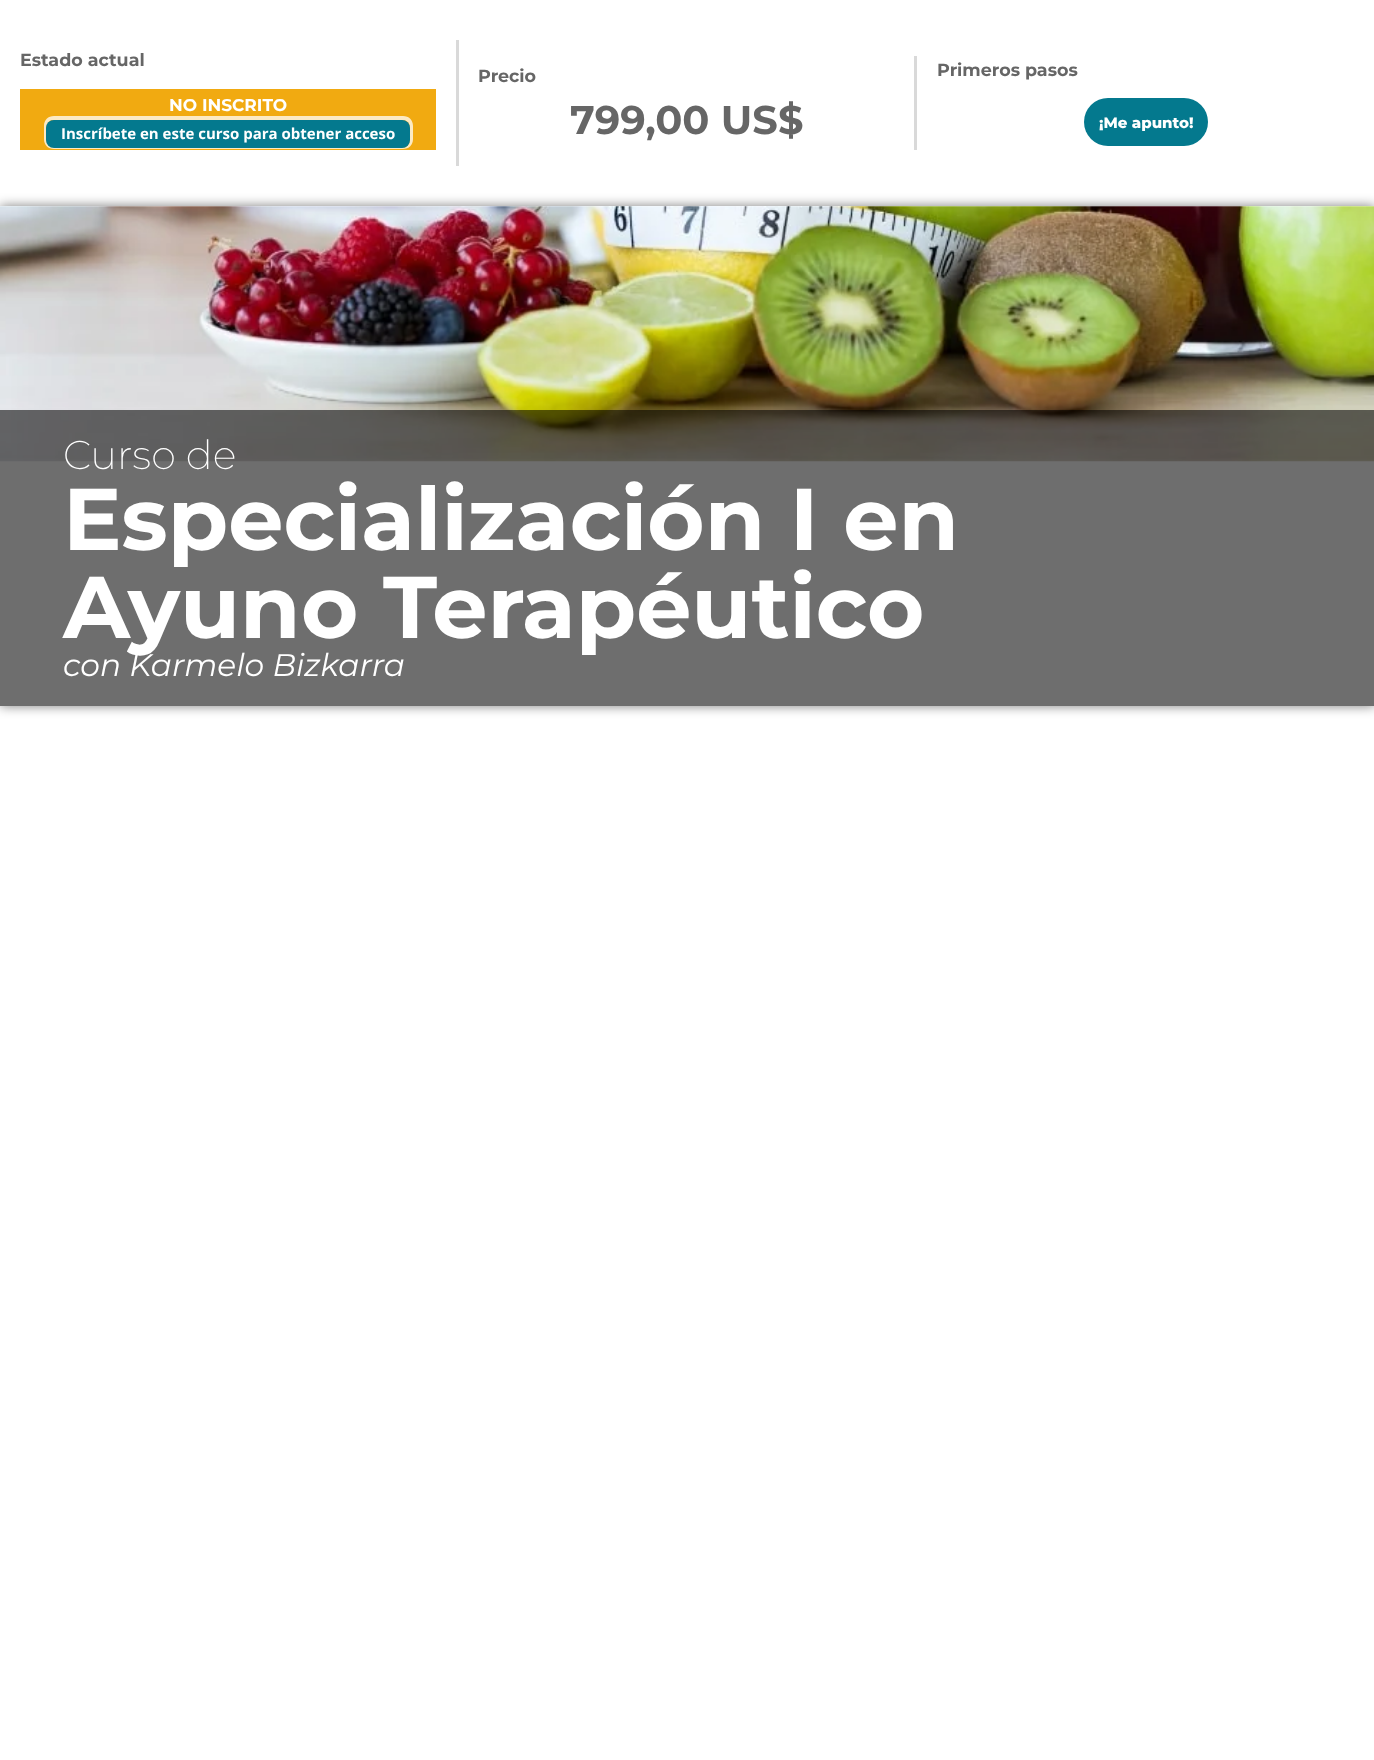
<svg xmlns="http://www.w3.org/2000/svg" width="1374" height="1760">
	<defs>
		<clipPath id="clip1"><path d="M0 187H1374V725H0ZM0 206H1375V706H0Z" clip-rule="evenodd" /></clipPath>
	</defs>
	<rect width="100%" height="100%" fill="#FFFFFF" />
	<rect x="456" y="40" width="3" height="126" fill="#D9D9D9" />
	<text x="20" y="66" font-family="Montserrat" font-size="17.5" font-weight="700" fill="#666666">Estado actual</text>
	<rect x="20" y="89" width="416" height="61" fill="#F1AA11" />
	<text x="169" y="111" font-family="Montserrat" font-size="17" font-weight="700" fill="#FFFFFF">NO INSCRITO</text>
	<path d="M54 116C48 116 44 120 44 126V139C44 145 48 149 54 149H403C409 149 413 145 413 139V126C413 120 409 116 403 116ZM54 120C46 120 46 128 46 134C46 139 46 146 52 147L402 148C411 147 410 139 410 134C410 128 411 120 402 120Z" fill="#FCEAC4" fill-rule="evenodd" />
	<rect x="46" y="120" width="364" height="28" rx="8" fill="#04798E" />
	<text x="61" y="139" font-family="Open Sans" font-size="15" font-weight="700" fill="#FFFFFF">Inscríbete en este curso para obtener acceso</text>
	<rect x="914" y="56" width="3" height="94" fill="#D9D9D9" />
	<text x="478" y="82" font-family="Montserrat" font-size="17.5" font-weight="700" fill="#666666">Precio</text>
	<text x="570" y="134" font-family="Montserrat" font-size="40" font-weight="700" fill="#666666">799,00 US$</text>
	<text x="937" y="76" font-family="Montserrat" font-size="17.5" font-weight="700" fill="#666666">Primeros pasos</text>
	<rect x="1084" y="98" width="124" height="48" rx="24" fill="#04798E" />
	<text x="1099" y="128" font-family="Montserrat" font-size="15" font-weight="800" fill="#FFFFFF">¡Me apunto!</text>
	<g clip-path="url(#clip1)">
		<rect x="0" y="206" width="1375" height="500" fill="#000000" fill-opacity="0.5" filter="blur(6px)" />
	</g>
	<image x="0" y="206" width="1374" height="256" href="assets/img1.png" />
	<rect x="0" y="410" width="1374" height="296" fill="#000000" fill-opacity="0.57" />
	<text x="63" y="469" font-family="Montserrat" font-size="40" font-weight="200" fill="#FFFFFF">Curso de</text>
	<g font-family="Montserrat" font-size="87.5" font-weight="700" fill="#FFFFFF">
		<text x="63" y="550">Especialización I en</text>
		<text x="63" y="638">Ayuno Terapéutico</text>
	</g>
	<text x="63" y="676" font-family="Montserrat" font-size="31.25" font-style="italic" fill="#FFFFFF">con Karmelo Bizkarra</text>
</svg>
